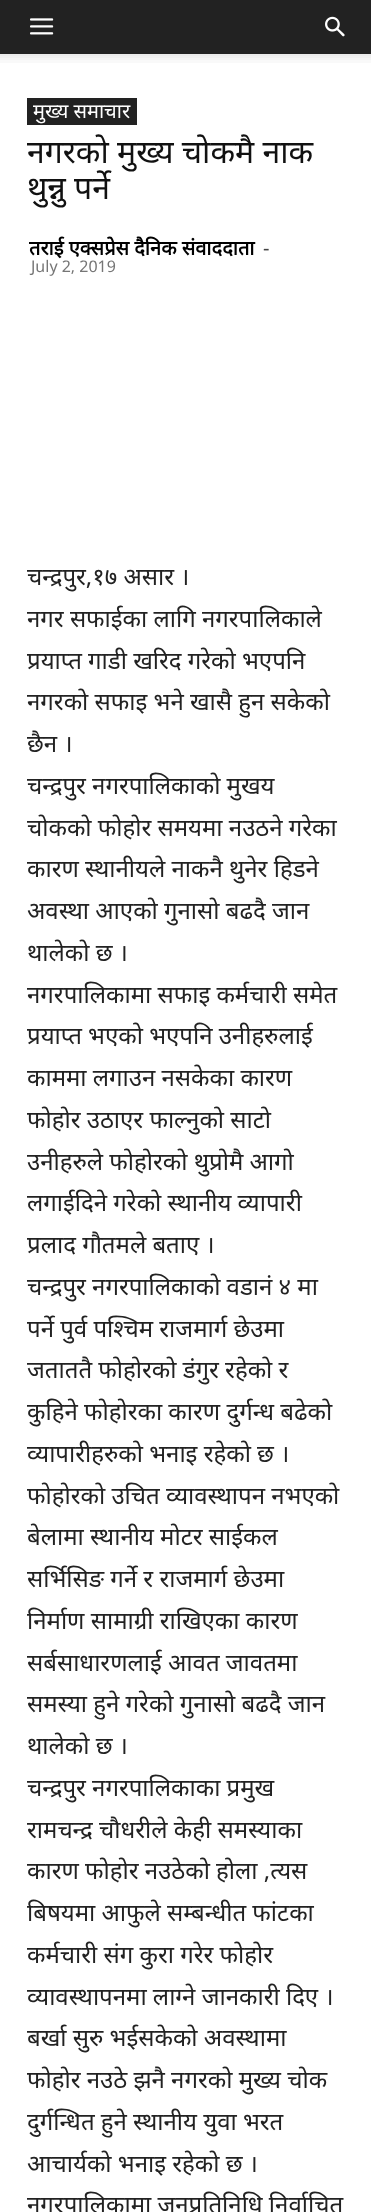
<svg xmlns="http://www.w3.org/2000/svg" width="371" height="2212">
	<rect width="100%" height="100%" fill="#FFFFFF" />
	<rect x="0" y="0" width="371" height="54" fill="#222222" />
	<image x="30" y="18" width="24" height="17" href="assets/img1.png" />
	<image x="325" y="16" width="20" height="21" href="assets/img2.png" />
	<image x="0" y="54" width="371" height="9" href="assets/img3.png" />
	<rect x="27" y="98" width="110" height="27" fill="#222222" />
	<text x="33" y="118" font-family="Noto Sans" font-size="20" fill="#FFFFFF">मुख्य समाचार</text>
	<g font-family="Noto Sans" font-size="32" fill="#111111">
		<text x="27" y="163">नगरको मुख्य चोकमै नाक</text>
		<text x="27" y="199">थुन्नु पर्ने</text>
	</g>
	<text x="29" y="255" font-family="Noto Sans" font-size="20" font-weight="700" fill="#000000">तराई एक्सप्रेस दैनिक संवाददाता</text>
	<text x="263" y="255" font-family="Noto Sans" font-size="20" fill="#444444">-</text>
	<text x="31" y="272" font-family="Noto Sans" font-size="16" fill="#767676">July 2, 2019</text>
	<g font-family="Noto Sans" font-size="24" fill="#222222">
		<text x="27" y="585">चन्द्रपुर,१७ असार ।</text>
		<text x="27" y="627">नगर सफाईका लागि नगरपालिकाले</text>
		<text x="27" y="669">प्रयाप्त गाडी खरिद गरेको भएपनि</text>
		<text x="27" y="710">नगरको सफाइ भने खासै हुन सकेको</text>
		<text x="27" y="752">छैन ।</text>
		<text x="27" y="794">चन्द्रपुर नगरपालिकाको मुखय</text>
		<text x="27" y="836">चोकको फोहोर समयमा नउठने गरेका</text>
		<text x="27" y="877">कारण स्थानीयले नाकनै थुनेर हिडने</text>
		<text x="27" y="919">अवस्था आएको गुनासो बढदै जान</text>
		<text x="27" y="961">थालेको छ ।</text>
		<text x="27" y="1003">नगरपालिकामा सफाइ कर्मचारी समेत</text>
		<text x="27" y="1044">प्रयाप्त भएको भएपनि उनीहरुलाई</text>
		<text x="27" y="1086">काममा लगाउन नसकेका कारण</text>
		<text x="27" y="1128">फोहोर उठाएर फाल्नुको साटो</text>
		<text x="27" y="1170">उनीहरुले फोहोरको थुप्रोमै आगो</text>
		<text x="27" y="1211">लगाईदिने गरेको स्थानीय व्यापारी</text>
		<text x="27" y="1253">प्रलाद गौतमले बताए ।</text>
		<text x="27" y="1295">चन्द्रपुर नगरपालिकाको वडानं ४ मा</text>
		<text x="27" y="1337">पर्ने पुर्व पश्चिम राजमार्ग छेउमा</text>
		<text x="27" y="1378">जताततै फोहोरको डंगुर रहेको र</text>
		<text x="27" y="1420">कुहिने फोहोरका कारण दुर्गन्ध बढेको</text>
		<text x="27" y="1462">व्यापारीहरुको भनाइ रहेको छ ।</text>
		<text x="27" y="1504">फोहोरको उचित व्यावस्थापन नभएको</text>
		<text x="27" y="1545">बेलामा स्थानीय मोटर साईकल</text>
		<text x="27" y="1587">सर्भिसिङ गर्ने र राजमार्ग छेउमा</text>
		<text x="27" y="1629">निर्माण सामाग्री राखिएका कारण</text>
		<text x="27" y="1671">सर्बसाधारणलाई आवत जावतमा</text>
		<text x="27" y="1712">समस्या हुने गरेको गुनासो बढदै जान</text>
		<text x="27" y="1754">थालेको छ ।</text>
		<text x="27" y="1796">चन्द्रपुर नगरपालिकाका प्रमुख</text>
		<text x="27" y="1838">रामचन्द्र चौधरीले केही समस्याका</text>
		<text x="27" y="1879">कारण फोहोर नउठेको होला ,त्यस</text>
		<text x="27" y="1921">बिषयमा आफुले सम्बन्धीत फांटका</text>
		<text x="27" y="1963">कर्मचारी संग कुरा गरेर फोहोर</text>
		<text x="27" y="2005">व्यावस्थापनमा लाग्ने जानकारी दिए ।</text>
		<text x="27" y="2046">बर्खा सुरु भईसकेको अवस्थामा</text>
		<text x="27" y="2088">फोहोर नउठे झनै नगरको मुख्य चोक</text>
		<text x="27" y="2130">दुर्गन्धित हुने स्थानीय युवा भरत</text>
		<text x="27" y="2172">आचार्यको भनाइ रहेको छ ।</text>
		<text x="27" y="2213">नगरपालिकामा जनप्रतिनिधि निर्वाचित</text>
	</g>
</svg>
